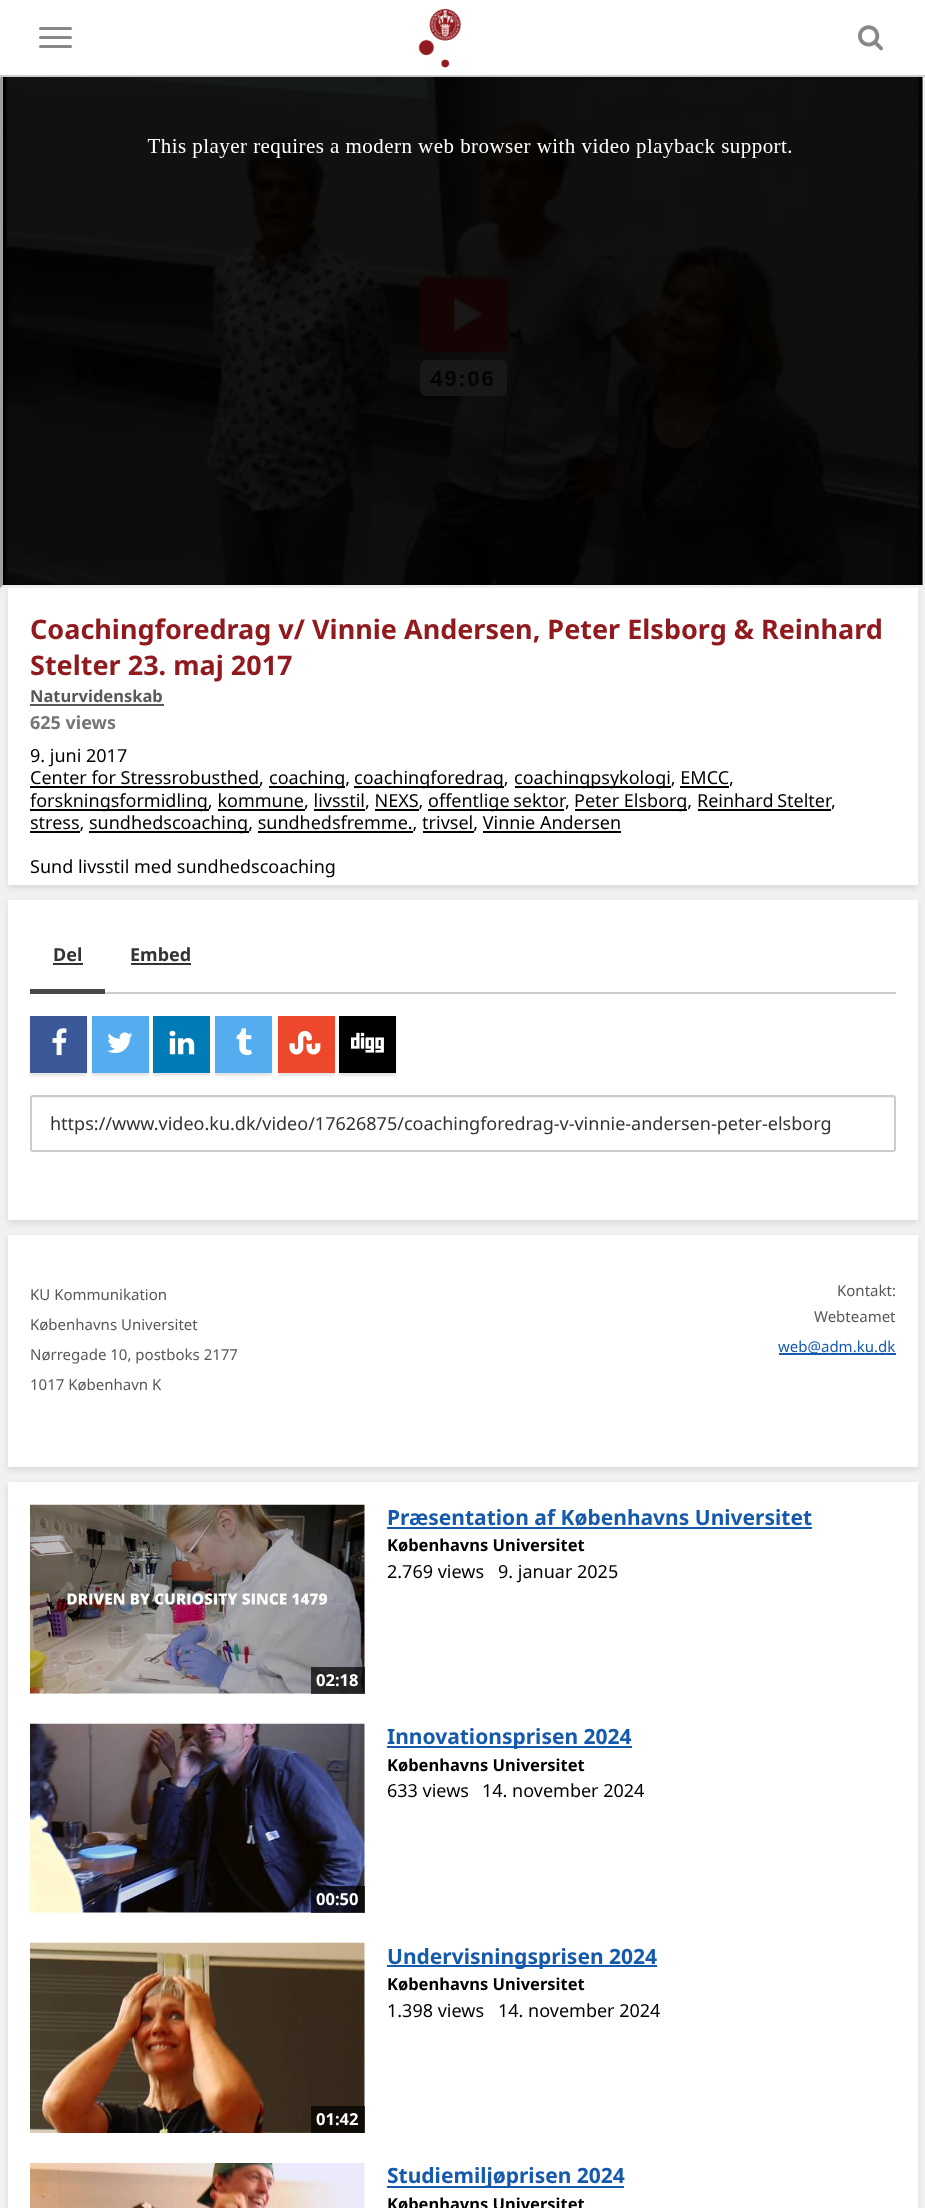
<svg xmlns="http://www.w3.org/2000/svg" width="925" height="2208">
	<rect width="100%" height="100%" fill="#F1F1F1" />
	<rect x="8" y="591" width="910" height="297" fill="#000000" fill-opacity="0.1" filter="blur(3px)" />
	<path d="M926 68V588L922 585V70Z" fill="#EEEEEE" />
	<path d="M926 588H0L3 585H922Z" fill="#EEEEEE" />
	<path d="M0 588V68L3 70V585Z" fill="#9F9F9F" />
	<rect x="0" y="0" width="925" height="75" fill="#FFFFFF" />
	<rect x="0" y="75" width="925" height="2" fill="#CCCCCC" />
	<rect x="39" y="27" width="33" height="3" rx="1.5" fill="#888888" />
	<rect x="39" y="36" width="33" height="3" rx="1.5" fill="#888888" />
	<rect x="39" y="45" width="33" height="3" rx="1.5" fill="#888888" />
	<image x="418" y="8" width="43" height="60" href="assets/img1.png" />
	<image x="858" y="25" width="25" height="26" href="assets/img2.png" />
	<image x="3" y="77" width="920" height="508" href="assets/img3.png" />
	<rect x="8" y="588" width="910" height="297" fill="#FFFFFF" />
	<g font-family="Noto Sans" font-size="27" font-weight="700" fill="#901A1E">
		<text x="30" y="639">Coachingforedrag v/ Vinnie Andersen, Peter Elsborg &amp; Reinhard</text>
		<text x="30" y="675">Stelter 23. maj 2017</text>
	</g>
	<text x="30" y="702" font-family="Noto Sans" font-size="16.5" font-weight="700" fill="#585858">Naturvidenskab</text>
	<rect x="30" y="704" width="134" height="2" fill="#585858" />
	<text x="30" y="729" font-family="Noto Sans" font-size="18" font-weight="700" fill="#757575">625 views</text>
	<text x="30" y="762" font-family="Noto Sans" font-size="18" fill="#000000">9. juni 2017</text>
	<rect x="30" y="786" width="230" height="2" fill="#000000" />
	<text x="30" y="784" font-family="Noto Sans" font-size="18" fill="#000000">Center for Stressrobusthed,</text>
	<rect x="269" y="786" width="76" height="2" fill="#000000" />
	<text x="269" y="784" font-family="Noto Sans" font-size="18" fill="#000000">coaching,</text>
	<rect x="354" y="786" width="150" height="2" fill="#000000" />
	<text x="354" y="784" font-family="Noto Sans" font-size="18" fill="#000000">coachingforedrag,</text>
	<rect x="515" y="786" width="156" height="2" fill="#000000" />
	<text x="514" y="784" font-family="Noto Sans" font-size="18" fill="#000000">coachingpsykologi, EMCC,</text>
	<rect x="680" y="786" width="49" height="2" fill="#000000" />
	<rect x="30" y="809" width="179" height="2" fill="#000000" />
	<text x="30" y="807" font-family="Noto Sans" font-size="18" fill="#000000">forskningsformidling, kommune</text>
	<rect x="218" y="809" width="87" height="2" fill="#000000" />
	<text x="304" y="807" font-family="Noto Sans" font-size="18" fill="#000000">, livsstil, NEXS,</text>
	<rect x="428" y="809" width="136" height="2" fill="#000000" />
	<text x="428" y="807" word-spacing="-1" font-family="Noto Sans" font-size="18" fill="#000000">offentlige sektor</text>
	<rect x="575" y="809" width="112" height="2" fill="#000000" />
	<g font-family="Noto Sans" font-size="18" fill="#000000">
		<text x="574" y="807">Peter Elsborg,</text>
		<text x="697" y="807" word-spacing="-1">Reinhard Stelter</text>
	</g>
	<rect x="698" y="809" width="133" height="2" fill="#000000" />
	<rect x="314" y="809" width="51" height="2" fill="#000000" />
	<rect x="375" y="809" width="44" height="2" fill="#000000" />
	<g font-family="Noto Sans" font-size="18" fill="#000000">
		<text x="565" y="807">,</text>
		<text x="831" y="807">,</text>
	</g>
	<rect x="30" y="831" width="50" height="2" fill="#000000" />
	<text x="30" y="829" font-family="Noto Sans" font-size="18" fill="#000000">stress,</text>
	<rect x="89" y="831" width="160" height="2" fill="#000000" />
	<text x="89" y="829" font-family="Noto Sans" font-size="18" fill="#000000">sundhedscoaching, sundhedsfremme., trivsel, Vinnie Andersen</text>
	<rect x="258" y="831" width="155" height="2" fill="#000000" />
	<rect x="423" y="831" width="51" height="2" fill="#000000" />
	<rect x="483" y="831" width="138" height="2" fill="#000000" />
	<text x="30" y="873" font-family="Noto Sans" font-size="18" fill="#000000">Sund livsstil med sundhedscoaching</text>
	<rect x="8" y="903" width="910" height="320" fill="#000000" fill-opacity="0.1" filter="blur(3px)" />
	<rect x="8" y="900" width="910" height="320" fill="#FFFFFF" />
	<rect x="105" y="992" width="791" height="2" fill="#CCCCCC" />
	<rect x="30" y="989" width="75" height="5" fill="#4A4949" />
	<text x="53" y="961" font-family="Noto Sans" font-size="18" font-weight="700" fill="#333333">Del</text>
	<rect x="53" y="963" width="30" height="2" fill="#333333" />
	<text x="130" y="961" font-family="Noto Sans" font-size="18" font-weight="700" fill="#333333">Embed</text>
	<rect x="131" y="963" width="60" height="2" fill="#333333" />
	<rect x="30" y="1019" width="57" height="57" fill="#000000" fill-opacity="0.1" filter="blur(1px)" />
	<rect x="30" y="1016" width="57" height="57" fill="#3B5998" />
	<image x="52" y="1028" width="15" height="28" href="assets/img4.png" />
	<rect x="92" y="1019" width="57" height="57" fill="#000000" fill-opacity="0.1" filter="blur(1px)" />
	<rect x="92" y="1016" width="57" height="57" fill="#55ACEE" />
	<image x="107" y="1032" width="26" height="21" href="assets/img5.png" />
	<rect x="153" y="1019" width="57" height="57" fill="#000000" fill-opacity="0.1" filter="blur(1px)" />
	<rect x="153" y="1016" width="57" height="57" fill="#007BB6" />
	<image x="169" y="1030" width="26" height="25" href="assets/img6.png" />
	<rect x="215" y="1019" width="57" height="57" fill="#000000" fill-opacity="0.1" filter="blur(1px)" />
	<rect x="215" y="1016" width="57" height="57" fill="#55ACEE" />
	<image x="236" y="1028" width="16" height="28" href="assets/img7.png" />
	<rect x="278" y="1019" width="57" height="57" fill="#000000" fill-opacity="0.1" filter="blur(1px)" />
	<rect x="278" y="1016" width="57" height="57" fill="#ED482C" />
	<image x="289" y="1030" width="32" height="25" href="assets/img8.png" />
	<rect x="339" y="1019" width="57" height="57" fill="#000000" fill-opacity="0.1" filter="blur(1px)" />
	<rect x="339" y="1016" width="57" height="57" fill="#000000" />
	<image x="351" y="1032" width="33" height="21" href="assets/img9.png" />
	<path d="M33 1098H892C893 1098 894 1099 894 1100C894 1099 894 1097 892 1097H33L32 1098V1100C32 1099 32 1098 33 1098Z" fill="#ECECEC" />
	<rect x="31" y="1096" width="864" height="55" rx="2" fill="none" stroke="#CCCCCC" stroke-width="2" />
	<text x="50" y="1130" font-family="Noto Sans" font-size="18" fill="#333333">https://www.video.ku.dk/video/17626875/coachingforedrag-v-vinnie-andersen-peter-elsborg</text>
	<rect x="8" y="1238" width="910" height="232" fill="#000000" fill-opacity="0.1" filter="blur(3px)" />
	<rect x="8" y="1235" width="910" height="232" fill="#FFFFFF" />
	<g font-family="Noto Sans" font-size="15" fill="#585858">
		<text x="30" y="1300">KU Kommunikation</text>
		<text x="30" y="1330">Københavns Universitet</text>
		<text x="30" y="1360">Nørregade 10, postboks 2177</text>
		<text x="30" y="1390">1017 København K</text>
		<text x="837" y="1296">Kontakt:</text>
		<text x="814" y="1322">Webteamet</text>
	</g>
	<rect x="779" y="1353" width="117" height="2" fill="#165AAD" />
	<text x="778" y="1352" font-family="Noto Sans" font-size="15" fill="#165AAD">web@adm.ku.dk</text>
	<rect x="8" y="1485" width="910" height="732" fill="#000000" fill-opacity="0.1" filter="blur(3px)" />
	<rect x="8" y="1482" width="910" height="726" fill="#FFFFFF" />
	<text x="387" y="1525" font-family="Noto Sans" font-size="21" font-weight="700" fill="#165AAD">Præsentation af Københavns Universitet</text>
	<rect x="387" y="1527" width="425" height="2" fill="#165AAD" />
	<text x="387" y="1551" font-family="Noto Sans" font-size="16.5" font-weight="700" fill="#000000">Københavns Universitet</text>
	<g font-family="Noto Sans" font-size="18" fill="#000000">
		<text x="387" y="1578">2.769 views</text>
		<text x="498" y="1578">9. januar 2025</text>
	</g>
	<image x="30" y="1504" width="335" height="190" href="assets/img10.png" />
	<rect x="311" y="1667" width="54" height="27" fill="#000000" fill-opacity="0.7" />
	<text x="316" y="1686" font-family="Noto Sans" font-size="16.5" font-weight="700" fill="#FFFFFF">02:18</text>
	<rect x="387" y="1746" width="245" height="2" fill="#165AAD" />
	<text x="387" y="1744" font-family="Noto Sans" font-size="21" font-weight="700" fill="#165AAD">Innovationsprisen 2024</text>
	<text x="387" y="1771" font-family="Noto Sans" font-size="16.5" font-weight="700" fill="#000000">Københavns Universitet</text>
	<g font-family="Noto Sans" font-size="18" fill="#000000">
		<text x="387" y="1797">633 views</text>
		<text x="482" y="1797">14. november 2024</text>
	</g>
	<image x="30" y="1723" width="335" height="190" href="assets/img11.png" />
	<rect x="311" y="1886" width="54" height="27" fill="#000000" fill-opacity="0.7" />
	<text x="316" y="1905" font-family="Noto Sans" font-size="16.5" font-weight="700" fill="#FFFFFF">00:50</text>
	<rect x="387" y="1965" width="270" height="2" fill="#165AAD" />
	<text x="387" y="1964" font-family="Noto Sans" font-size="21" font-weight="700" fill="#165AAD">Undervisningsprisen 2024</text>
	<text x="387" y="1990" font-family="Noto Sans" font-size="16.5" font-weight="700" fill="#000000">Københavns Universitet</text>
	<g font-family="Noto Sans" font-size="18" fill="#000000">
		<text x="387" y="2017">1.398 views</text>
		<text x="498" y="2017">14. november 2024</text>
	</g>
	<image x="30" y="1942" width="335" height="191" href="assets/img12.png" />
	<rect x="311" y="2106" width="54" height="27" fill="#000000" fill-opacity="0.7" />
	<text x="316" y="2125" font-family="Noto Sans" font-size="16.5" font-weight="700" fill="#FFFFFF">01:42</text>
	<image x="30" y="2163" width="335" height="45" href="assets/img13.png" />
	<rect x="387" y="2186" width="237" height="2" fill="#165AAD" />
	<text x="387" y="2183" font-family="Noto Sans" font-size="21" font-weight="700" fill="#165AAD">Studiemiljøprisen 2024</text>
	<text x="387" y="2210" font-family="Noto Sans" font-size="16.5" font-weight="700" fill="#000000">Københavns Universitet</text>
</svg>
